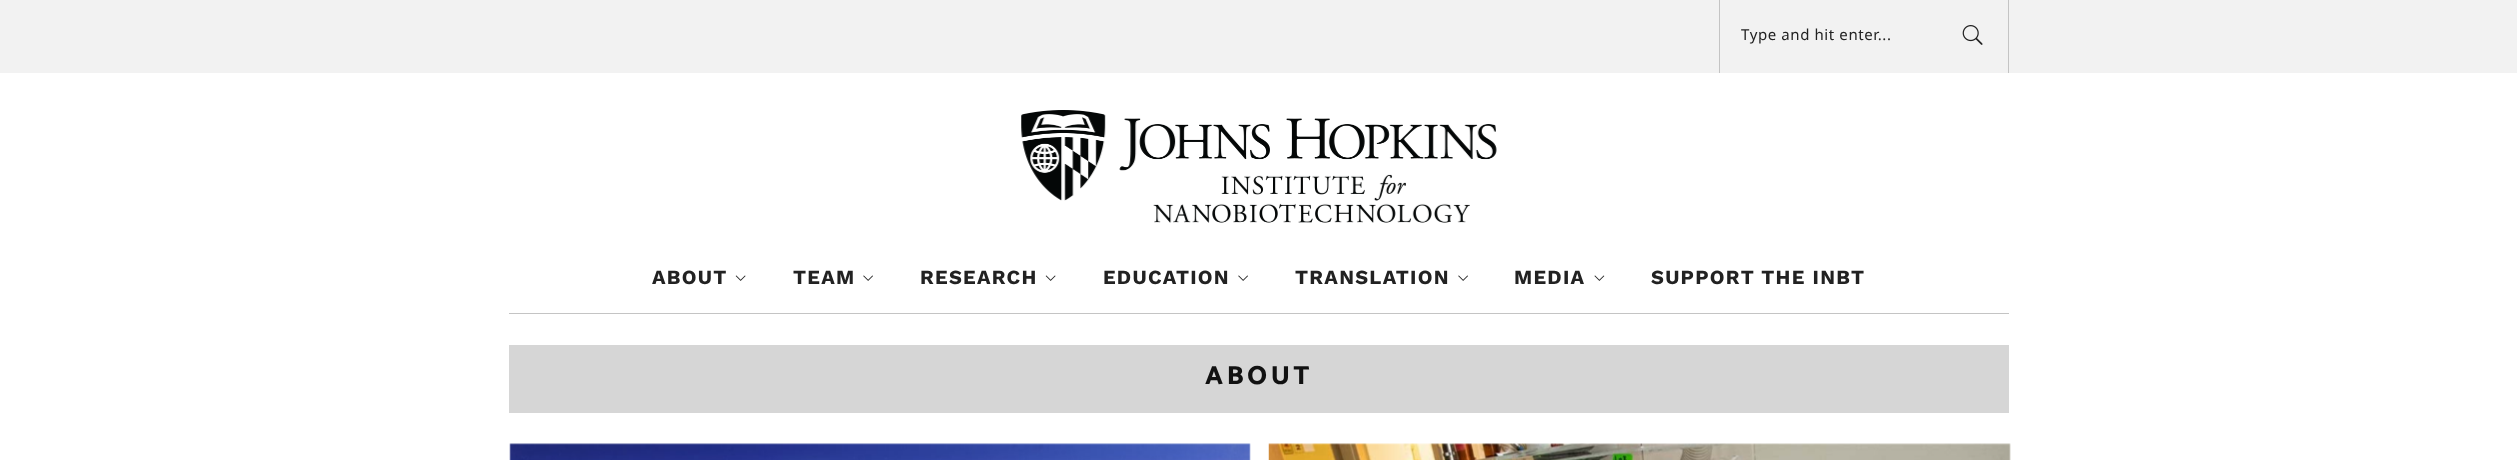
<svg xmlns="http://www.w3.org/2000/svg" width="2517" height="460">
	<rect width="100%" height="100%" fill="#FFFFFF" />
	<rect x="0" y="0" width="2517" height="73" fill="#F2F2F2" />
	<rect x="2008" y="0" width="1" height="73" fill="#C4C4C4" />
	<rect x="1719" y="0" width="1" height="73" fill="#C4C4C4" />
	<text x="1741" y="40" font-family="Noto Sans" font-size="15" letter-spacing="0.6" fill="#222222">Type and hit enter...</text>
	<image x="1962" y="25" width="21" height="20" href="assets/img1.png" />
	<image x="1021" y="110" width="476" height="113" href="assets/img2.png" />
	<rect x="509" y="313" width="1500" height="1" fill="#C4C4C4" />
	<text x="652" y="284" font-family="Work Sans" font-size="20" font-weight="700" letter-spacing="1.25" fill="#222222">ABOUT</text>
	<image x="735" y="275" width="11" height="6" href="assets/img3.png" />
	<text x="793" y="284" font-family="Work Sans" font-size="20" font-weight="700" letter-spacing="1.25" fill="#222222">TEAM</text>
	<image x="863" y="275" width="10" height="6" href="assets/img4.png" />
	<text x="920" y="284" font-family="Work Sans" font-size="20" font-weight="700" letter-spacing="1.25" fill="#222222">RESEARCH</text>
	<image x="1045" y="275" width="11" height="6" href="assets/img3.png" />
	<text x="1103" y="284" font-family="Work Sans" font-size="20" font-weight="700" letter-spacing="1.25" fill="#222222">EDUCATION</text>
	<image x="1238" y="275" width="10" height="6" href="assets/img4.png" />
	<text x="1295" y="284" font-family="Work Sans" font-size="20" font-weight="700" letter-spacing="1.25" fill="#222222">TRANSLATION</text>
	<image x="1458" y="275" width="10" height="6" href="assets/img4.png" />
	<text x="1514" y="284" font-family="Work Sans" font-size="20" font-weight="700" letter-spacing="1.25" fill="#222222">MEDIA</text>
	<image x="1594" y="275" width="11" height="6" href="assets/img5.png" />
	<text x="1651" y="284" font-family="Work Sans" font-size="20" font-weight="700" letter-spacing="1.25" fill="#222222">SUPPORT THE INBT</text>
	<rect x="509" y="345" width="1500" height="68" fill="#D6D6D6" />
	<text x="1205" y="384" font-family="Catamaran" font-size="26.25" font-weight="800" letter-spacing="3.75" fill="#111111">ABOUT</text>
	<image x="509" y="443" width="742" height="17" href="assets/img6.png" />
	<image x="1268" y="443" width="743" height="17" href="assets/img7.png" />
</svg>
